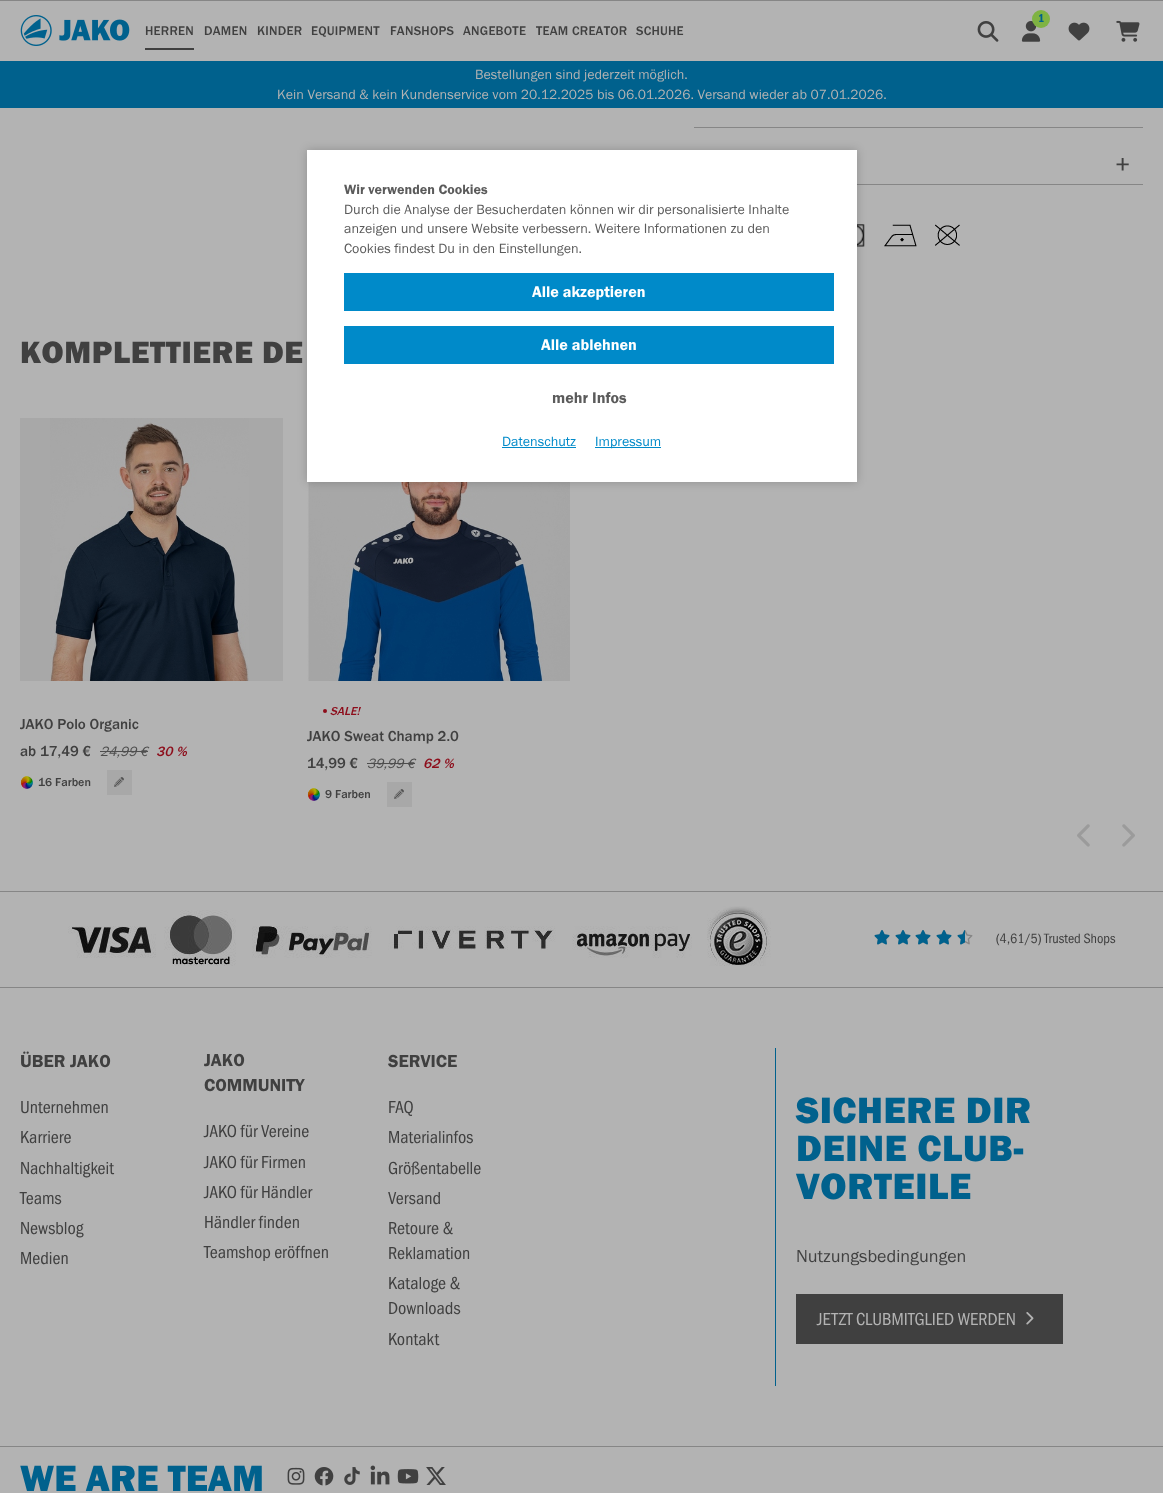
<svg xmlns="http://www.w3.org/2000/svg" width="1163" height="1493">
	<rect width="100%" height="100%" fill="#B3B3B3" />
	<rect x="0" y="0" width="1163" height="1" fill="#868686" />
	<image x="1021" y="21" width="20" height="21" href="assets/img1.png" />
	<circle cx="1041" cy="19" r="9" fill="#7FB343" />
	<text x="1038" y="22" font-family="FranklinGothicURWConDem" font-size="12" fill="#00618D">1</text>
	<image x="1068" y="22" width="22" height="19" href="assets/img2.png" />
	<image x="1116" y="20" width="24" height="22" href="assets/img3.png" />
	<image x="20" y="15" width="110" height="31" href="assets/img4.png" />
	<text x="145" y="35" font-family="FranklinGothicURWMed" font-size="13" letter-spacing="0.25" fill="#404040">HERREN</text>
	<rect x="145" y="48" width="49" height="2" fill="#404040" />
	<g font-family="FranklinGothicURWMed" font-size="13" letter-spacing="0.25" fill="#404040">
		<text x="204" y="35">DAMEN</text>
		<text x="257" y="35">KINDER</text>
		<text x="311" y="35">EQUIPMENT</text>
		<text x="390" y="35">FANSHOPS</text>
		<text x="463" y="35">ANGEBOTE</text>
		<text x="536" y="35">TEAM CREATOR</text>
		<text x="636" y="35">SCHUHE</text>
	</g>
	<image x="977" y="21" width="22" height="21" href="assets/img5.png" />
	<rect x="0" y="61" width="1163" height="47" fill="#00618D" />
	<g font-family="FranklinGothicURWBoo" font-size="14" fill="#B3B3B3">
		<text x="475" y="79">Bestellungen sind jederzeit möglich.</text>
		<text x="277" y="99">Kein Versand &amp; kein Kundenservice vom 20.12.2025 bis 06.01.2026. Versand wieder ab 07.01.2026.</text>
	</g>
	<rect x="694" y="127" width="449" height="1" fill="#868686" />
	<rect x="857" y="184" width="286" height="1" fill="#868686" />
	<text x="1115" y="173" font-family="FranklinGothicURWBoo" font-size="26" fill="#404040">+</text>
	<image x="857" y="224" width="8" height="23" href="assets/img6.png" />
	<image x="884" y="224" width="33" height="23" href="assets/img7.png" />
	<image x="935" y="224" width="25" height="22" href="assets/img8.png" />
	<text x="20" y="363" font-family="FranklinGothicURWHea" font-size="32" font-weight="900" letter-spacing="0.6" fill="#404040">KOMPLETTIERE DE</text>
	<rect x="20" y="418" width="263" height="263" fill="#A8A8A8" />
	<image x="50" y="418" width="199" height="263" href="assets/img9.png" />
	<g font-family="FranklinGothicURWMed" font-size="15" fill="#404040">
		<text x="20" y="729">JAKO Polo Organic</text>
		<text x="20" y="756">ab 17,49 €</text>
	</g>
	<text x="100" y="756" font-family="FranklinGothicURWBoo" font-size="14" font-style="italic" fill="#4E4E4E">24,99 €</text>
	<rect x="100" y="751" width="48" height="1" fill="#4E4E4E" />
	<text x="156" y="756" font-family="FranklinGothicURWMed" font-size="14" font-style="italic" fill="#8D0D1B">30 %</text>
	<image x="20" y="776" width="13" height="13" href="assets/img10.png" />
	<text x="38" y="786" font-family="FranklinGothicURWMed" font-size="12" fill="#404040">16 Farben</text>
	<rect x="107" y="770" width="25" height="25" fill="#A8A8A8" />
	<image x="114" y="777" width="10" height="10" href="assets/img11.png" />
	<image x="307" y="482" width="263" height="199" href="assets/img12.png" />
	<circle cx="325" cy="711" r="2" fill="#8D0D1B" />
	<text x="330" y="715" font-family="FranklinGothicURWMed" font-size="12" font-style="italic" fill="#8D0D1B">SALE!</text>
	<g font-family="FranklinGothicURWMed" font-size="15" fill="#404040">
		<text x="307" y="741">JAKO Sweat Champ 2.0</text>
		<text x="307" y="768">14,99 €</text>
	</g>
	<text x="367" y="768" font-family="FranklinGothicURWBoo" font-size="14" font-style="italic" fill="#4E4E4E">39,99 €</text>
	<rect x="367" y="763" width="48" height="1" fill="#4E4E4E" />
	<text x="423" y="768" font-family="FranklinGothicURWMed" font-size="14" font-style="italic" fill="#8D0D1B">62 %</text>
	<image x="307" y="788" width="13" height="13" href="assets/img10.png" />
	<text x="325" y="798" font-family="FranklinGothicURWMed" font-size="12" fill="#404040">9 Farben</text>
	<rect x="387" y="782" width="25" height="25" fill="#A8A8A8" />
	<image x="394" y="789" width="10" height="10" href="assets/img11.png" />
	<image x="1077" y="824" width="13" height="23" href="assets/img13.png" />
	<image x="1122" y="824" width="13" height="23" href="assets/img14.png" />
	<rect x="0" y="891" width="1163" height="1" fill="#868686" />
	<image x="68" y="910" width="624" height="56" href="assets/img15.png" />
	<image x="707" y="906" width="64" height="60" href="assets/img16.png" />
	<image x="874" y="930" width="16" height="15" href="assets/img17.png" />
	<image x="895" y="930" width="16" height="15" href="assets/img17.png" />
	<image x="915" y="930" width="16" height="15" href="assets/img17.png" />
	<image x="936" y="930" width="16" height="15" href="assets/img17.png" />
	<image x="957" y="930" width="16" height="15" href="assets/img17.png" />
	<image x="874" y="930" width="16" height="15" href="assets/img18.png" />
	<image x="895" y="930" width="16" height="15" href="assets/img18.png" />
	<image x="915" y="930" width="16" height="15" href="assets/img18.png" />
	<image x="936" y="930" width="16" height="15" href="assets/img18.png" />
	<image x="957" y="930" width="8" height="15" href="assets/img19.png" />
	<text x="996" y="943" font-family="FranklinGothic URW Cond" font-size="14" fill="#404040">(4,61/5) Trusted Shops</text>
	<rect x="0" y="987" width="1163" height="1" fill="#868686" />
	<text x="20" y="1067" font-family="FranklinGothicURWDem" font-size="18" fill="#404040">ÜBER JAKO</text>
	<g font-family="FranklinGothic URW Cond" font-size="18" fill="#404040">
		<text x="20" y="1113">Unternehmen</text>
		<text x="20" y="1143">Karriere</text>
		<text x="20" y="1174">Nachhaltigkeit</text>
		<text x="20" y="1204">Teams</text>
		<text x="20" y="1234">Newsblog</text>
		<text x="20" y="1264">Medien</text>
	</g>
	<g font-family="FranklinGothicURWDem" font-size="18" fill="#404040">
		<text x="204" y="1066">JAKO</text>
		<text x="204" y="1091">COMMUNITY</text>
	</g>
	<g font-family="FranklinGothic URW Cond" font-size="18" fill="#404040">
		<text x="204" y="1137">JAKO für Vereine</text>
		<text x="204" y="1168">JAKO für Firmen</text>
		<text x="204" y="1198">JAKO für Händler</text>
		<text x="204" y="1228">Händler finden</text>
		<text x="204" y="1258">Teamshop eröffnen</text>
	</g>
	<text x="388" y="1067" font-family="FranklinGothicURWDem" font-size="18" fill="#404040">SERVICE</text>
	<g font-family="FranklinGothic URW Cond" font-size="18" fill="#404040">
		<text x="388" y="1113">FAQ</text>
		<text x="388" y="1143">Materialinfos</text>
		<text x="388" y="1174">Größentabelle</text>
		<text x="388" y="1204">Versand</text>
		<text x="388" y="1234">Retoure &amp;</text>
		<text x="388" y="1259">Reklamation</text>
		<text x="388" y="1289">Kataloge &amp;</text>
		<text x="388" y="1314">Downloads</text>
		<text x="388" y="1345">Kontakt</text>
	</g>
	<rect x="775" y="1048" width="1" height="338" fill="#00618D" />
	<g font-family="FranklinGothicURWHea" font-size="38" font-weight="900" letter-spacing="0.6" fill="#00618D">
		<text x="796" y="1123">SICHERE DIR</text>
		<text x="796" y="1161">DEINE CLUB-</text>
		<text x="796" y="1199">VORTEILE</text>
	</g>
	<text x="796" y="1262" font-family="FranklinGothicURWBoo" font-size="18" fill="#404040">Nutzungsbedingungen</text>
	<rect x="796" y="1294" width="267" height="50" fill="#404040" />
	<text x="817" y="1325" font-family="FranklinGothic URW Cond" font-size="18" fill="#B3B3B3">JETZT CLUBMITGLIED WERDEN</text>
	<image x="1026" y="1312" width="8" height="13" href="assets/img20.png" />
	<rect x="0" y="1446" width="1163" height="1" fill="#868686" />
	<text x="20" y="1491" font-family="FranklinGothicURWHea" font-size="38" font-weight="900" fill="#00618D">WE ARE TEAM</text>
	<image x="287" y="1467" width="18" height="18" href="assets/img21.png" />
	<image x="314" y="1467" width="20" height="19" href="assets/img22.png" />
	<image x="344" y="1467" width="16" height="18" href="assets/img23.png" />
	<image x="370" y="1465" width="20" height="20" href="assets/img24.png" />
	<image x="397" y="1469" width="22" height="15" href="assets/img25.png" />
	<image x="426" y="1467" width="20" height="18" href="assets/img26.png" />
	<rect x="307" y="150" width="550" height="332" fill="#000000" fill-opacity="0.2" filter="blur(5px)" />
	<rect x="307" y="150" width="550" height="332" fill="#FFFFFF" />
	<text x="344" y="194" font-family="FranklinGothicURWDem" font-size="14" fill="#5B5B5B">Wir verwenden Cookies</text>
	<g font-family="FranklinGothicURWBoo" font-size="14" fill="#5B5B5B">
		<text x="344" y="214">Durch die Analyse der Besucherdaten können wir dir personalisierte Inhalte</text>
		<text x="344" y="233">anzeigen und unsere Website verbessern. Weitere Informationen zu den</text>
		<text x="344" y="253">Cookies findest Du in den Einstellungen.</text>
	</g>
	<rect x="344" y="273" width="490" height="38" fill="#008AC9" />
	<text x="532" y="297" font-family="FranklinGothicURWDem" font-size="16" fill="#FFFFFF">Alle akzeptieren</text>
	<rect x="344" y="326" width="490" height="38" fill="#008AC9" />
	<text x="541" y="350" font-family="FranklinGothicURWDem" font-size="16" fill="#FFFFFF">Alle ablehnen</text>
	<text x="552" y="403" font-family="FranklinGothicURWDem" font-size="16" fill="#5B5B5B">mehr Infos</text>
	<text x="502" y="446" font-family="FranklinGothicURWBoo" font-size="14" fill="#008AC9">Datenschutz</text>
	<rect x="502" y="447" width="74" height="1" fill="#008AC9" />
	<rect x="595" y="447" width="66" height="1" fill="#008AC9" />
	<text x="595" y="446" font-family="FranklinGothicURWBoo" font-size="14" fill="#008AC9">Impressum</text>
</svg>
